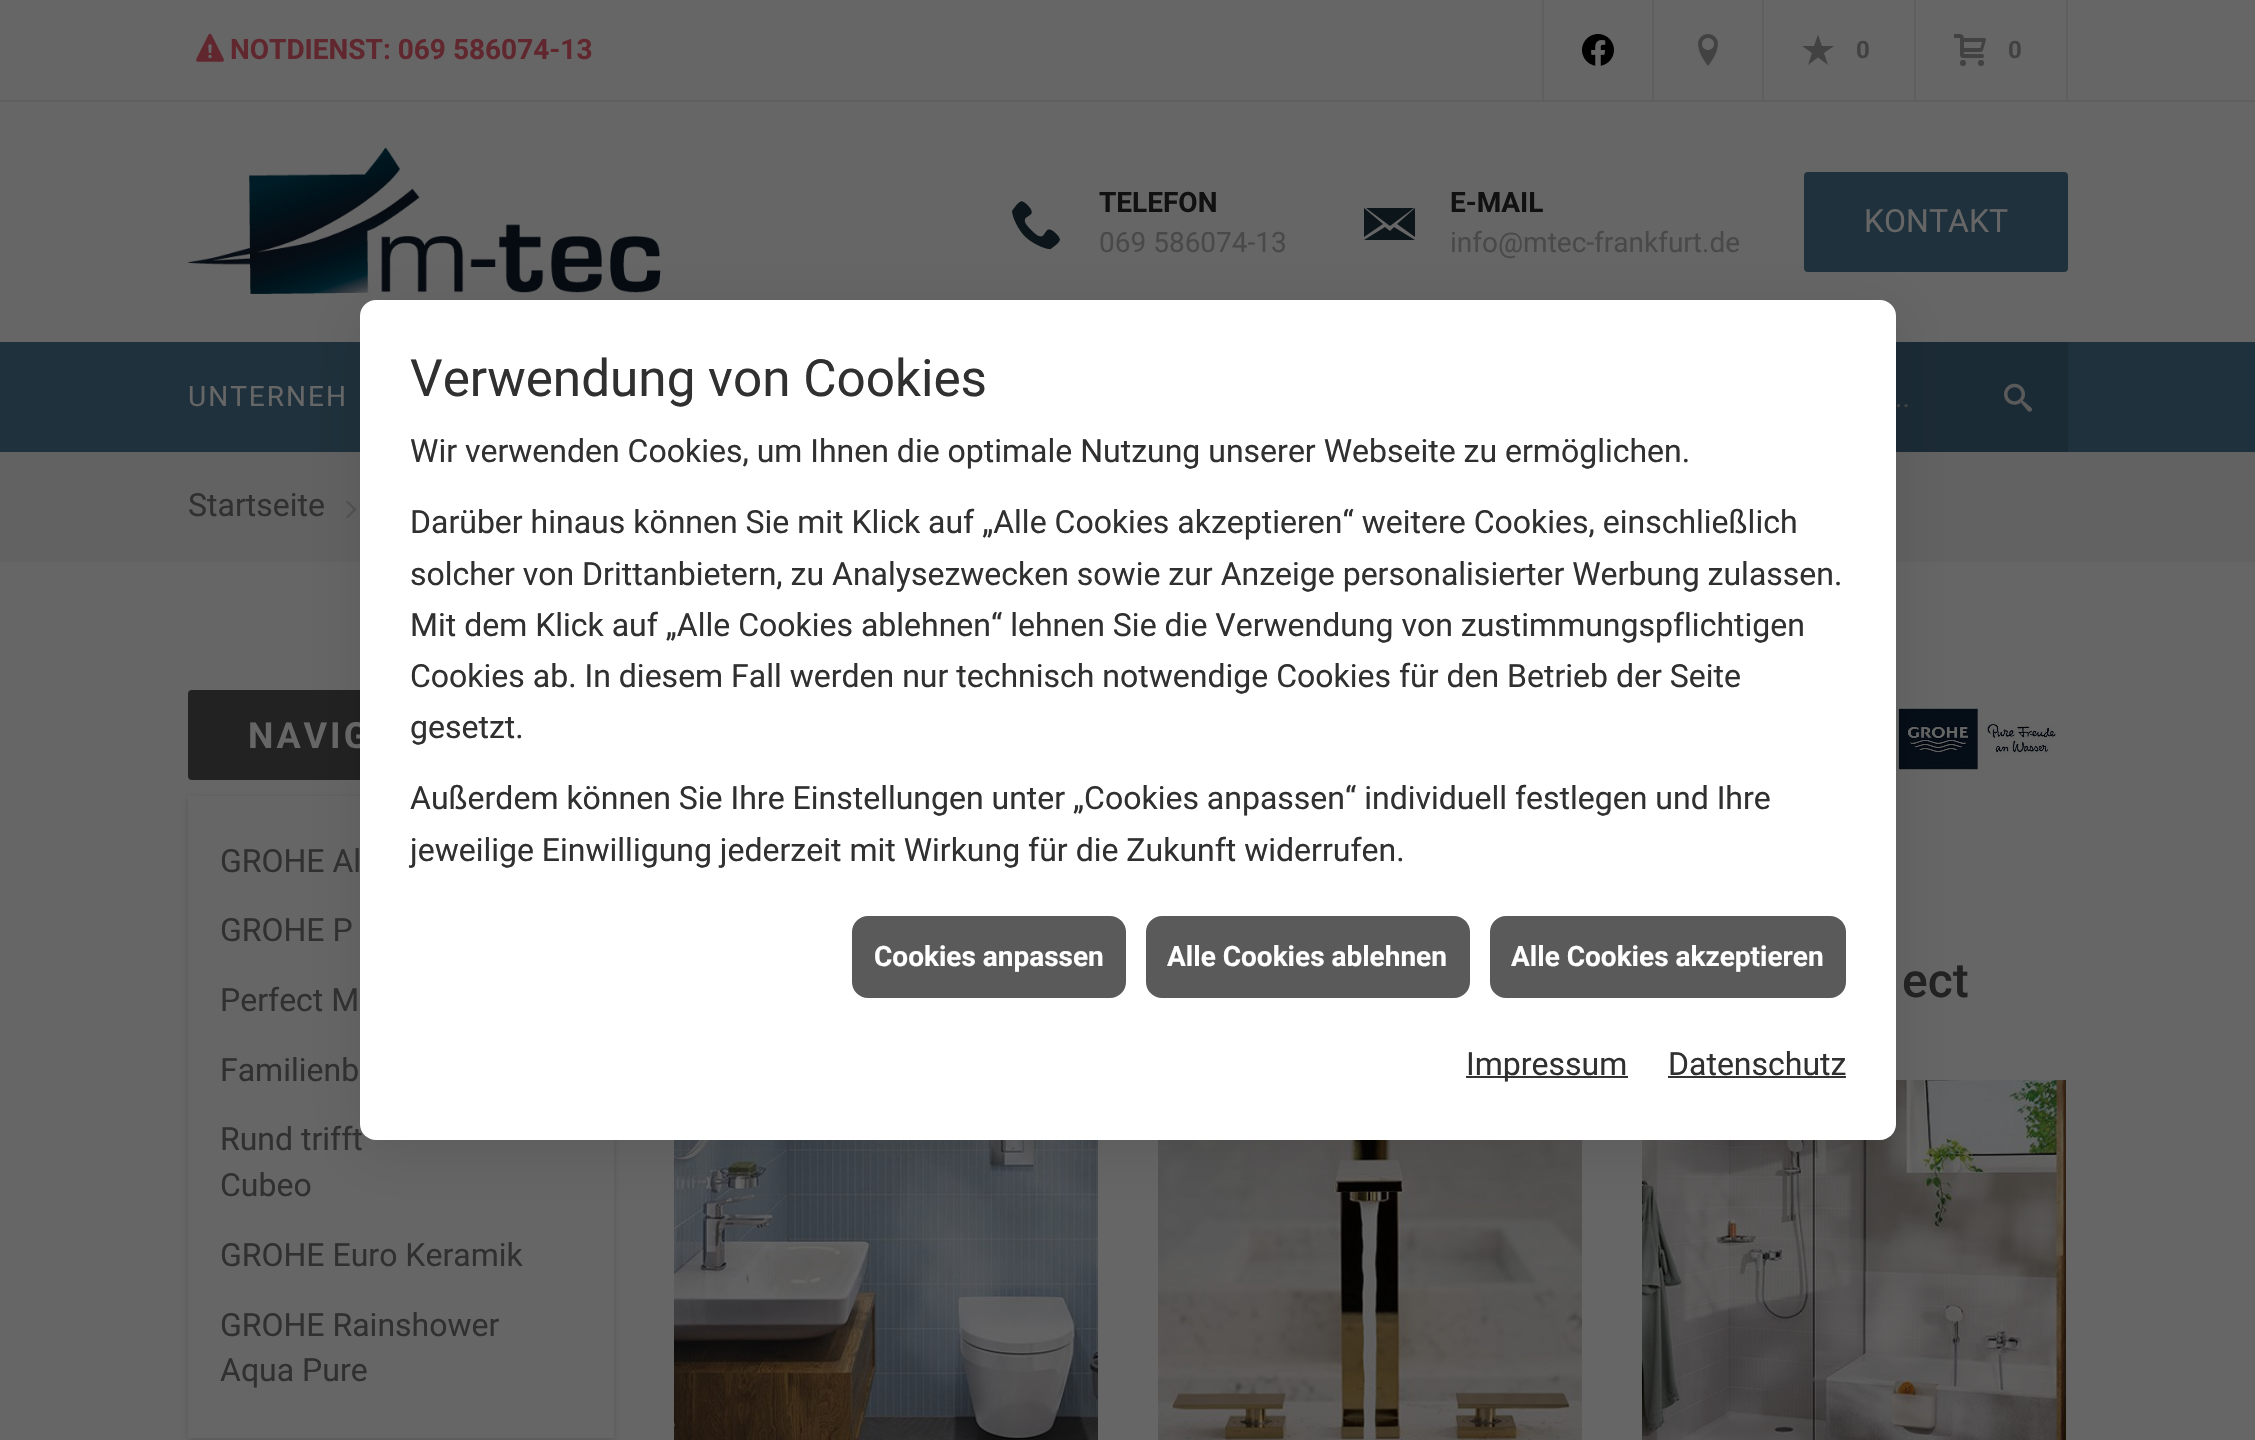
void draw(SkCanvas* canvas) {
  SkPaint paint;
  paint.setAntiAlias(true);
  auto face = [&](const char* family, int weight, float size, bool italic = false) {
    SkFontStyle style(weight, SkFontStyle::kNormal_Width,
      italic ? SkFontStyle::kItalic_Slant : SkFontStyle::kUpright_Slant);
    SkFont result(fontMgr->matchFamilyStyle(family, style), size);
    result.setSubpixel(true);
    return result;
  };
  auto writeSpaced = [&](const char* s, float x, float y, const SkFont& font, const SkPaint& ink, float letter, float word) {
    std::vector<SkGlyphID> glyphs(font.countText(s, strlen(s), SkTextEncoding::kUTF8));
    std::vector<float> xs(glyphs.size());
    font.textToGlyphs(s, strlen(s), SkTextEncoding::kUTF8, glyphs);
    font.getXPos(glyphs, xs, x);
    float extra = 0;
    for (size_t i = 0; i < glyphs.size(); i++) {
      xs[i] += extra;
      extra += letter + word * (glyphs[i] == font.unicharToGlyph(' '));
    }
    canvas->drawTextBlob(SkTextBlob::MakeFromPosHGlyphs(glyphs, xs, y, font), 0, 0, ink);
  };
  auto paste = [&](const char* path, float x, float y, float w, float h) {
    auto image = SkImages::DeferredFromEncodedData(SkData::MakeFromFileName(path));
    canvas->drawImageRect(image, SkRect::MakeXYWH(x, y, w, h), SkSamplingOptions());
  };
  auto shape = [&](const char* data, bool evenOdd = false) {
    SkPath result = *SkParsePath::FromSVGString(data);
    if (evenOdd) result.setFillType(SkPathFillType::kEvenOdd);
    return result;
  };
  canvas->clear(0xff626262);
  paint.setColor(0xff666666);
  canvas->drawRect(SkRect::MakeXYWH(0, 0, 2255, 100), paint);
  paint.setColor(0xff5f5f5f);
  canvas->drawRect(SkRect::MakeXYWH(0, 100, 2255, 2), paint);
  paste("img/1.png", 196, 33, 28, 29);
  canvas->drawRect(SkRect::MakeXYWH(1542, 0, 2, 100), paint);
  paste("img/2.png", 1582, 34, 32, 32);
  canvas->drawRect(SkRect::MakeXYWH(1652, 0, 2, 100), paint);
  paste("img/3.png", 1698, 34, 20, 32);
  canvas->drawRect(SkRect::MakeXYWH(1762, 0, 2, 100), paint);
  paint.setColor(0xff424242);
  canvas->drawPath(shape("M1834 46H1822L1818 34.5L1814 46H1802L1812 53L1808 65L1818 57.5L1828 65L1824 53Z"), paint);
  paint.setColor(0xff5f5f5f);
  canvas->drawRect(SkRect::MakeXYWH(2066, 0, 2, 100), paint);
  canvas->drawRect(SkRect::MakeXYWH(1914, 0, 2, 100), paint);
  paste("img/4.png", 1954, 34, 32, 32);
  paint.setColor(0xff666666);
  canvas->drawRect(SkRect::MakeXYWH(0, 102, 2255, 240), paint);
  paste("img/5.png", 188, 147, 473, 147);
  paste("img/6.png", 1012, 201, 48, 49);
  paint.setColor(0xff0c161a);
  canvas->drawPath(shape("M1397 224L1415 237V208ZM1364 208V237L1383 224ZM1390 231L1385 227L1364 240H1415L1394 227ZM1414 208H1366L1390 226Z"), paint);
  paint.setColor(0xff1f313c);
  canvas->drawRoundRect(SkRect::MakeXYWH(1804, 172, 264, 100), 4, 4, paint);
  canvas->drawRect(SkRect::MakeXYWH(0, 342, 2255, 110), paint);
  paint.setColor(0xff1b2b36);
  canvas->drawRect(SkRect::MakeXYWH(1896, 342, 172, 110), paint);
  paste("img/7.png", 2004, 383, 28, 29);
  paint.setColor(0xff525252);
  canvas->drawPath(shape("M347.5 500.5L356.5 509.5L355 511L346 502Z"), paint);
  canvas->drawPath(shape("M355 508L356.5 509.5L347.5 518.5L346 517Z"), paint);
  paint.setColor(0xff666666);
  canvas->drawRect(SkRect::MakeXYWH(0, 562, 2255, 878), paint);
  paint.setColor(0xff222222);
  canvas->drawRoundRect(SkRect::MakeXYWH(188, 690, 366, 90), 4, 4, paint);
  canvas->save();
  canvas->clipPath(shape("M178 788H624V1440H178ZM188 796H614V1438H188Z", true), true);
  paint.setColor(0x26000000);
  paint.setMaskFilter(SkMaskFilter::MakeBlur(kNormal_SkBlurStyle, 3));
  canvas->drawRect(SkRect::MakeXYWH(188, 798, 426, 642), paint);
  paint.setMaskFilter(nullptr);
  canvas->restore();
  paste("img/8.png", 1896, 706, 160, 64);
  paste("img/9.png", 1642, 1080, 424, 360);
  paste("img/10.png", 674, 1140, 424, 300);
  paste("img/11.png", 1158, 1140, 424, 300);
  paint.setColor(0x1a000000);
  paint.setMaskFilter(SkMaskFilter::MakeBlur(kNormal_SkBlurStyle, 28));
  canvas->drawRoundRect(SkRect::MakeXYWH(360, 312, 1536, 840), 16, 16, paint);
  paint.setMaskFilter(nullptr);
  auto f0 = face("Roboto", 700, 28);
  paint.setColor(0xff61272f);
  canvas->drawString("NOTDIENST: 069 586074-13", 230, 59, f0, paint);
  auto f1 = face("Roboto", 700, 24);
  paint.setColor(0xff424242);
  canvas->drawString("0", 1856, 58, f1, paint);
  canvas->drawString("0", 2008, 58, f1, paint);
  paint.setColor(0xff111111);
  canvas->drawString("TELEFON", 1099, 212, f0, paint);
  auto f2 = face("Roboto", 400, 28);
  paint.setColor(0xff494949);
  canvas->drawString("069 586074-13", 1099, 252, f2, paint);
  paint.setColor(0xff111111);
  canvas->drawString("E-MAIL", 1450, 212, f0, paint);
  paint.setColor(0xff494949);
  canvas->drawString("info@mtec-frankfurt.de", 1450, 252, f2, paint);
  auto f3 = face("Roboto", 400, 32);
  paint.setColor(0xff666666);
  canvas->drawString("KONTAKT", 1864, 232, f3, paint);
  writeSpaced("UNTERNEH", 188, 406, f2, paint, 2, 0);
  paint.setColor(0xff424242);
  canvas->drawString("..", 1895, 407, f2, paint);
  paint.setColor(0xff303030);
  canvas->drawString("Startseite", 188, 516, f3, paint);
  auto f4 = face("Roboto", 700, 36);
  paint.setColor(0xff666666);
  writeSpaced("NAVIG", 248, 748, f4, paint, 3, 0);
  paint.setColor(0xff303030);
  {
    const struct { const char* s; float x, y; } items[] = {
      {"GROHE Al", 220, 872},
      {"GROHE P", 220, 941},
      {"Perfect M", 220, 1011},
      {"Familienb", 220, 1081},
      {"Rund trifft", 220, 1150},
      {"Cubeo", 220, 1196},
      {"GROHE Euro Keramik", 220, 1266},
      {"GROHE Rainshower", 220, 1336},
      {"Aqua Pure", 220, 1381},
    };
    for (auto [s, x, y] : items) {
      canvas->drawString(s, x, y, f3, paint);
    }
  }
  auto f5 = face("Roboto", 500, 48);
  paint.setColor(0xff222222);
  canvas->drawString("ect", 1902, 997, f5, paint);
  paint.setColor(0xffffffff);
  canvas->drawRoundRect(SkRect::MakeXYWH(360, 300, 1536, 840), 16, 16, paint);
  auto f6 = face("Roboto", 400, 51.25f);
  paint.setColor(0xff303030);
  canvas->drawString("Verwendung von Cookies", 410, 396, f6, paint);
  {
    const struct { const char* s; float x, y; } items[] = {
      {"Wir verwenden Cookies, um Ihnen die optimale Nutzung unserer Webseite zu ermöglichen.", 410, 462},
      {"Darüber hinaus können Sie mit Klick auf „Alle Cookies akzeptieren“ weitere Cookies, einschließlich", 410, 533},
      {"solcher von Drittanbietern, zu Analysezwecken sowie zur Anzeige personalisierter Werbung zulassen.", 410, 585},
      {"Mit dem Klick auf „Alle Cookies ablehnen“ lehnen Sie die Verwendung von zustimmungspflichtigen", 410, 636},
      {"Cookies ab. In diesem Fall werden nur technisch notwendige Cookies für den Betrieb der Seite", 410, 687},
      {"gesetzt.", 410, 738},
      {"Außerdem können Sie Ihre Einstellungen unter „Cookies anpassen“ individuell festlegen und Ihre", 410, 809},
      {"jeweilige Einwilligung jederzeit mit Wirkung für die Zukunft widerrufen.", 410, 861},
    };
    for (auto [s, x, y] : items) {
      canvas->drawString(s, x, y, f3, paint);
    }
  }
  paint.setColor(0xff5a5a5a);
  canvas->drawRoundRect(SkRect::MakeXYWH(853, 917, 272, 80), 15, 15, paint);
  paint.setStroke(true);
  paint.setStrokeWidth(2);
  canvas->drawRoundRect(SkRect::MakeXYWH(853, 917, 272, 80), 15, 15, paint);
  paint.setStroke(false);
  paint.setColor(0xffffffff);
  canvas->drawString("Cookies anpassen", 874, 966, f0, paint);
  paint.setColor(0xff5a5a5a);
  canvas->drawRoundRect(SkRect::MakeXYWH(1147, 917, 322, 80), 15, 15, paint);
  paint.setStroke(true);
  canvas->drawRoundRect(SkRect::MakeXYWH(1147, 917, 322, 80), 15, 15, paint);
  paint.setStroke(false);
  paint.setColor(0xffffffff);
  canvas->drawString("Alle Cookies ablehnen", 1167, 966, f0, paint);
  paint.setColor(0xff5a5a5a);
  canvas->drawRoundRect(SkRect::MakeXYWH(1491, 917, 354, 80), 15, 15, paint);
  paint.setStroke(true);
  canvas->drawRoundRect(SkRect::MakeXYWH(1491, 917, 354, 80), 15, 15, paint);
  paint.setStroke(false);
  paint.setColor(0xffffffff);
  canvas->drawString("Alle Cookies akzeptieren", 1511, 966, f0, paint);
  paint.setColor(0xff333333);
  canvas->drawRect(SkRect::MakeXYWH(1466, 1076, 162, 2), paint);
  paint.setColor(0xff303030);
  canvas->drawString("Impressum", 1466, 1075, f3, paint);
  canvas->drawString("Datenschutz", 1668, 1075, f3, paint);
  paint.setColor(0xff333333);
  canvas->drawRect(SkRect::MakeXYWH(1668, 1076, 178, 2), paint);
}
